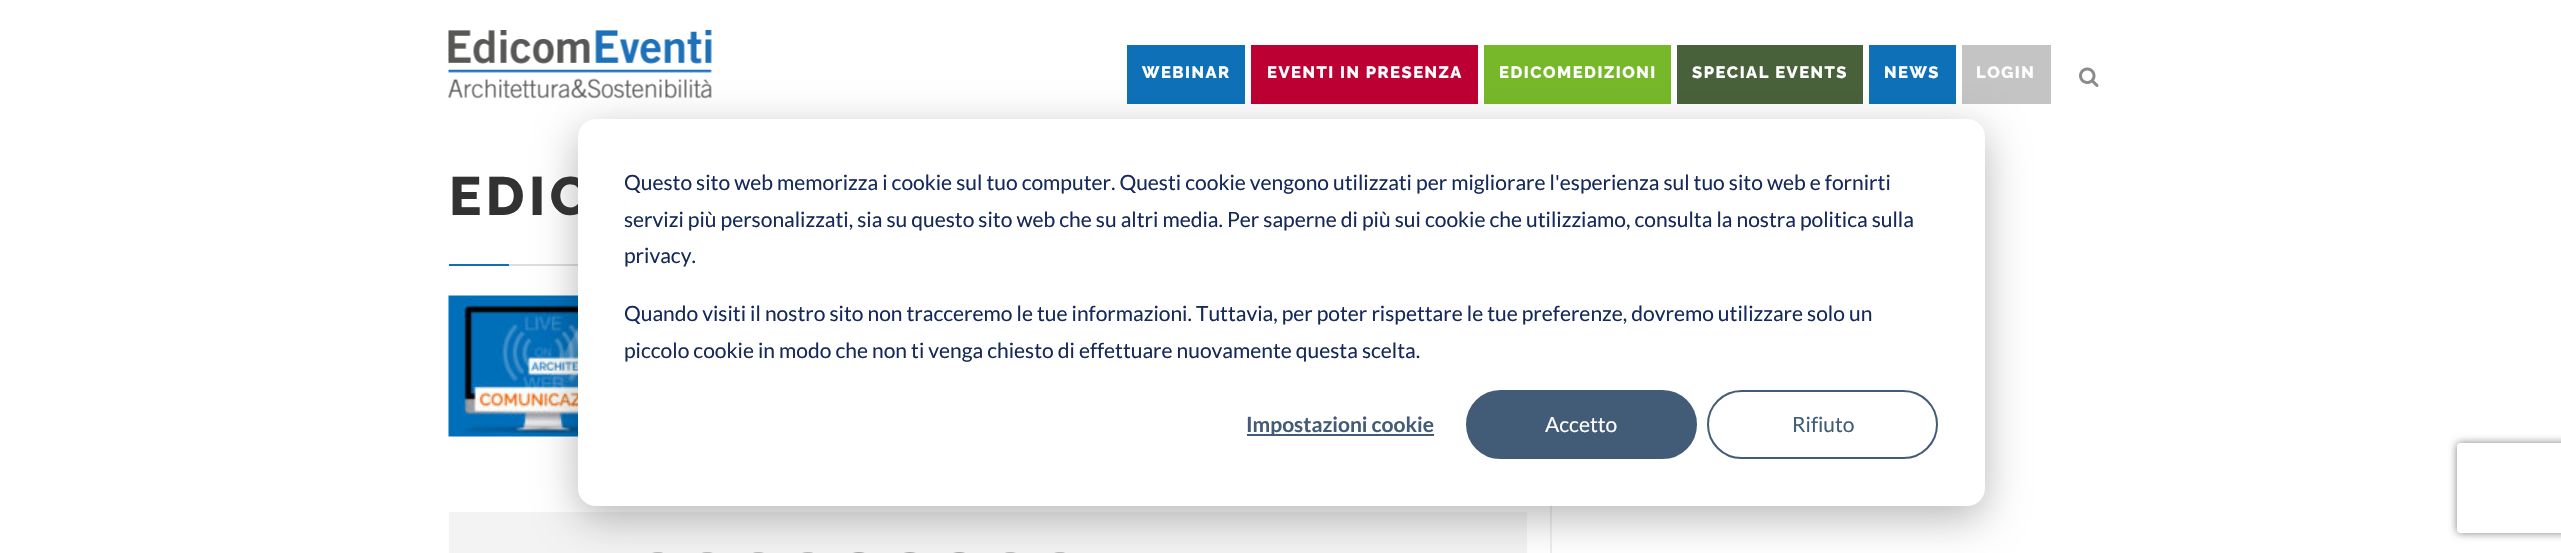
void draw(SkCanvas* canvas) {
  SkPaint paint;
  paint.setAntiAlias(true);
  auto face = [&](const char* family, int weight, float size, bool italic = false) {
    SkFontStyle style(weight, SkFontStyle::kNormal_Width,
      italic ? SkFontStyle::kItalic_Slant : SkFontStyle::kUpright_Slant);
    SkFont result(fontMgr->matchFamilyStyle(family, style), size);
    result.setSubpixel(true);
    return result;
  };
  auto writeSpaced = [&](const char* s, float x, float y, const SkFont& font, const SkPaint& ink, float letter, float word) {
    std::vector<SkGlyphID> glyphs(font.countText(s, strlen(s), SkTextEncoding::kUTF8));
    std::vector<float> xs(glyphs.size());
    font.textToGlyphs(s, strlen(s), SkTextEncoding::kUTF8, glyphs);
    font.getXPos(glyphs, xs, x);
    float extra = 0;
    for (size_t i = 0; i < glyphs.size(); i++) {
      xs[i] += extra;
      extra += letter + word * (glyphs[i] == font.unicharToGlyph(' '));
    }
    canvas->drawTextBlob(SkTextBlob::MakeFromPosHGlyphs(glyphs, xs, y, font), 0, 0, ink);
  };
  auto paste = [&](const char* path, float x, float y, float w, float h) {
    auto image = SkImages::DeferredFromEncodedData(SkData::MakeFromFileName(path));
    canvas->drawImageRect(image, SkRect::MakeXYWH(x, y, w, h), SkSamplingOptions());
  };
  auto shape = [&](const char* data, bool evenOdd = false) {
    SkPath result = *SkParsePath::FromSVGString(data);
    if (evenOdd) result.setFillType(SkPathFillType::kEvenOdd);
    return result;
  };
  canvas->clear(0xffffffff);
  paste("img/1.png", 448, 30, 264, 69);
  {
    const struct { float x, y, w, h; SkColor color; } items[] = {
      {1127, 45, 118, 59, 0xff0e71b8},
      {1251, 45, 227, 59, 0xffbd0033},
      {1484, 45, 187, 59, 0xff76b82a},
      {1677, 45, 186, 59, 0xff49613b},
      {1869, 45, 87, 59, 0xff0e71b8},
      {1962, 45, 89, 59, 0xffc4c4c4},
    };
    for (auto [x, y, w, h, color] : items) {
      paint.setColor(color);
      canvas->drawRect(SkRect::MakeXYWH(x, y, w, h), paint);
    }
  }
  paste("img/2.png", 2079, 67, 20, 20);
  {
    const struct { float x, y, w, h; SkColor color; } items[] = {
      {1550, 506, 2, 47, 0xffeeeeee},
      {509, 264, 69, 2, 0xffdddddd},
      {449, 264, 60, 2, 0xff0e71b8},
    };
    for (auto [x, y, w, h, color] : items) {
      paint.setColor(color);
      canvas->drawRect(SkRect::MakeXYWH(x, y, w, h), paint);
    }
  }
  paste("img/3.png", 448, 295, 130, 142);
  paint.setColor(0xfff3f3f3);
  canvas->drawRect(SkRect::MakeXYWH(449, 512, 1078, 41), paint);
  paste("img/4.png", 652, 552, 11, 1);
  paste("img/5.png", 702, 552, 11, 1);
  paste("img/5.png", 753, 552, 11, 1);
  paste("img/4.png", 802, 552, 11, 1);
  paste("img/6.png", 853, 552, 12, 1);
  paste("img/7.png", 904, 552, 12, 1);
  paste("img/8.png", 953, 552, 12, 1);
  paste("img/9.png", 1005, 552, 11, 1);
  paste("img/4.png", 1054, 552, 11, 1);
  paint.setColor(0x47000000);
  paint.setMaskFilter(SkMaskFilter::MakeBlur(kNormal_SkBlurStyle, 21));
  canvas->drawRoundRect(SkRect::MakeXYWH(578, 131, 1407, 387), 18, 18, paint);
  paint.setMaskFilter(nullptr);
  canvas->save();
  canvas->clipPath(shape("M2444 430H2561V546H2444ZM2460 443H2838C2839.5 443 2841 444.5 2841 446V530C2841 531.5 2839.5 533 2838 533H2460C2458.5 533 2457 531.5 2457 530V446C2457 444.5 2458.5 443 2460 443Z", true), true);
  paint.setColor(0xff808080);
  paint.setMaskFilter(SkMaskFilter::MakeBlur(kNormal_SkBlurStyle, 4));
  canvas->drawRoundRect(SkRect::MakeXYWH(2457, 443, 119, 90), 3, 3, paint);
  paint.setMaskFilter(nullptr);
  canvas->restore();
  auto f0 = face("Raleway", 800, 16.5f);
  paint.setColor(0xffffffff);
  {
    const struct { const char* s; float x, y; } items[] = {
      {"WEBINAR", 1142, 78},
      {"EVENTI IN PRESENZA", 1267, 78},
      {"EDICOMEDIZIONI", 1499, 78},
      {"SPECIAL EVENTS", 1692, 78},
      {"NEWS", 1884, 78},
      {"LOGIN", 1976, 78},
    };
    for (auto [s, x, y] : items) {
      writeSpaced(s, x, y, f0, paint, 1.5f, 0);
    }
  }
  auto f1 = face("Raleway", 800, 54);
  paint.setColor(0xff323232);
  writeSpaced("EDIC", 449, 215, f1, paint, 4.5f, 0);
  paint.setColor(0xffffffff);
  canvas->drawRoundRect(SkRect::MakeXYWH(578, 119, 1407, 387), 18, 18, paint);
  auto f2 = face("Lato", 400, 21);
  paint.setColor(0xff15295a);
  {
    const struct { const char* s; float x, y; } items[] = {
      {"Questo sito web memorizza i cookie sul tuo computer. Questi cookie vengono utilizzati per migliorare l'esperienza sul tuo sito web e fornirti", 624, 190},
      {"servizi più personalizzati, sia su questo sito web che su altri media. Per saperne di più sui cookie che utilizziamo, consulta la nostra politica sulla", 624, 227},
      {"privacy.", 624, 263},
      {"Quando visiti il nostro sito non tracceremo le tue informazioni. Tuttavia, per poter rispettare le tue preferenze, dovremo utilizzare solo un", 624, 321},
      {"piccolo cookie in modo che non ti venga chiesto di effettuare nuovamente questa scelta.", 624, 358},
    };
    for (auto [s, x, y] : items) {
      canvas->drawString(s, x, y, f2, paint);
    }
  }
  paint.setColor(0xff425b76);
  canvas->drawRect(SkRect::MakeXYWH(1247, 434, 187, 2), paint);
  auto f3 = face("Lato", 700, 21);
  canvas->drawString("Impostazioni cookie", 1246, 432, f3, paint);
  canvas->drawRoundRect(SkRect::MakeXYWH(1467, 391, 229, 67), 33.5f, 33.5f, paint);
  paint.setStroke(true);
  paint.setStrokeWidth(2);
  canvas->drawRoundRect(SkRect::MakeXYWH(1467, 391, 229, 67), 33.5f, 33.5f, paint);
  paint.setStroke(false);
  paint.setColor(0xffffffff);
  canvas->drawString("Accetto", 1545, 432, f2, paint);
  paint.setStroke(true);
  paint.setColor(0xff425b76);
  canvas->drawRoundRect(SkRect::MakeXYWH(1708, 391, 229, 67), 33.5f, 33.5f, paint);
  paint.setStroke(false);
  canvas->drawString("Rifiuto", 1792, 432, f2, paint);
}
